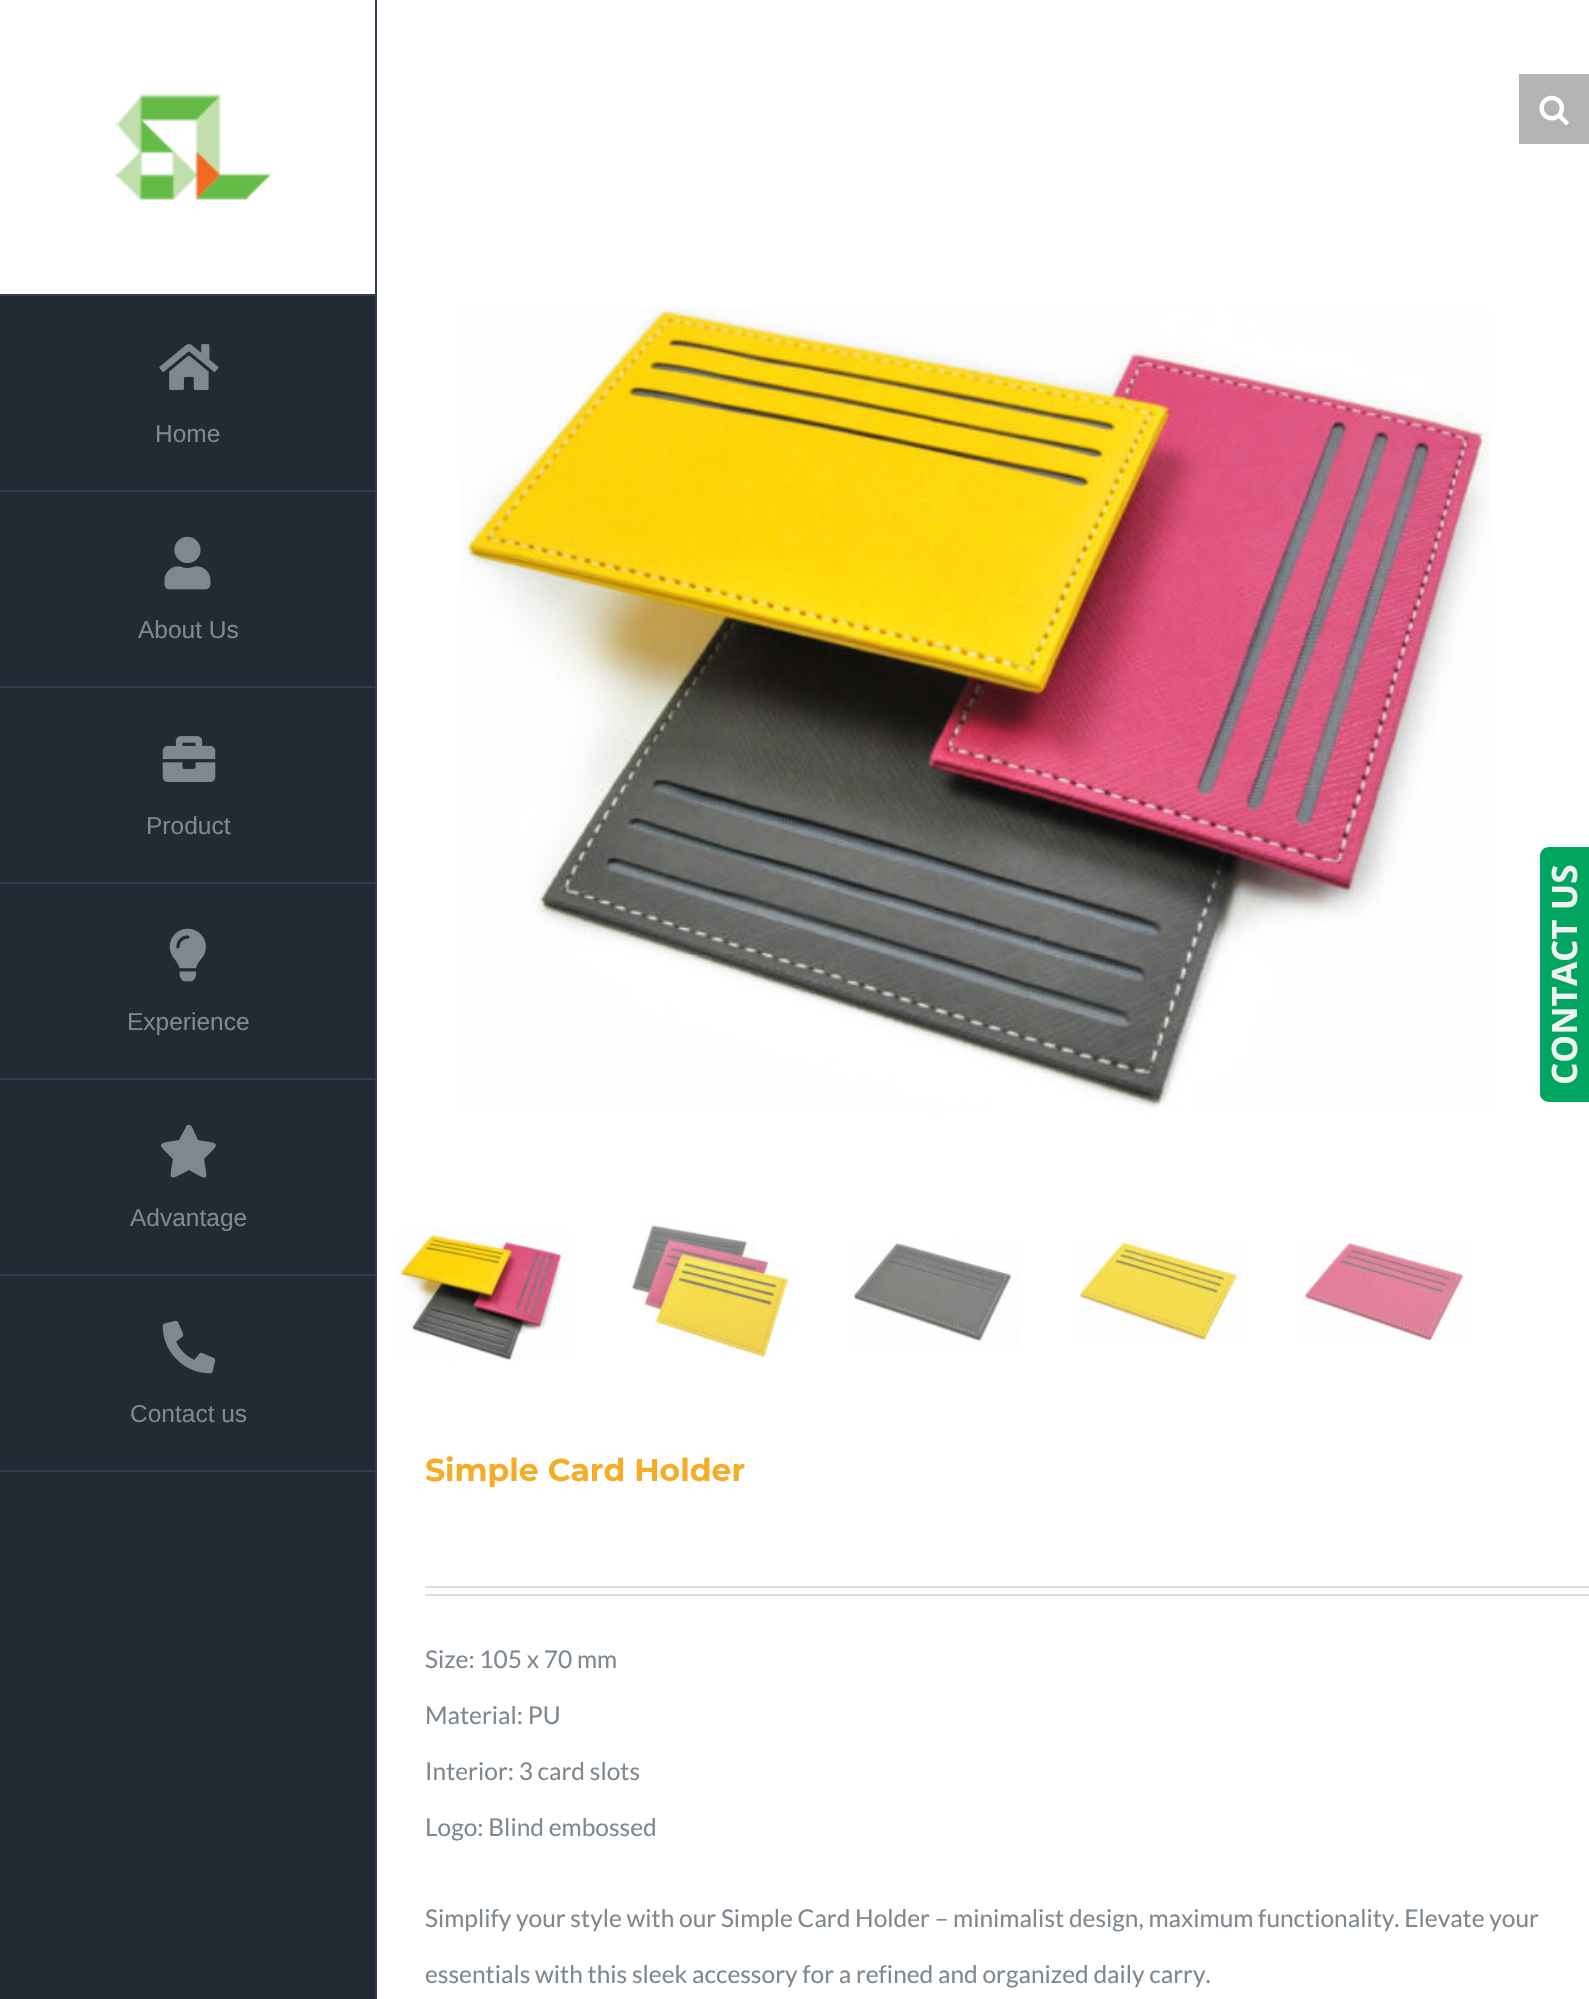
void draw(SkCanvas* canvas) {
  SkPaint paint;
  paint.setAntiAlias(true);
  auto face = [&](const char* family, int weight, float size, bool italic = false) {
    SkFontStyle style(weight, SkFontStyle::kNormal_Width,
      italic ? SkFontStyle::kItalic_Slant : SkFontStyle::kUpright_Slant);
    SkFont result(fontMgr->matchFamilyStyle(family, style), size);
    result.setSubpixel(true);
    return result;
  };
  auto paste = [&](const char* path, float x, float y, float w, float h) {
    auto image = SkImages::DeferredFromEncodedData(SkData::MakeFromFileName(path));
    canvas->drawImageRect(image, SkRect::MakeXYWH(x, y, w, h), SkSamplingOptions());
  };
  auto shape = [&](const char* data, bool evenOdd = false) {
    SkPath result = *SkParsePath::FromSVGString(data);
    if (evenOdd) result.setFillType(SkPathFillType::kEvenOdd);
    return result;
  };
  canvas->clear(0xffffffff);
  paint.setColor(0xff232a34);
  canvas->drawRect(SkRect::MakeXYWH(0, 296, 375, 1703), paint);
  paint.setColor(0xff333c4e);
  canvas->drawRect(SkRect::MakeXYWH(375, 0, 2, 1999), paint);
  paste("img/1.png", 115, 94, 157, 106);
  canvas->drawRect(SkRect::MakeXYWH(0, 294, 376, 2), paint);
  canvas->drawRect(SkRect::MakeXYWH(0, 490, 376, 2), paint);
  paste("img/2.png", 159, 344, 60, 46);
  canvas->drawRect(SkRect::MakeXYWH(0, 686, 376, 2), paint);
  paste("img/3.png", 164, 536, 47, 54);
  canvas->drawRect(SkRect::MakeXYWH(0, 882, 376, 2), paint);
  paste("img/4.png", 162, 736, 54, 46);
  canvas->drawRect(SkRect::MakeXYWH(0, 1078, 376, 2), paint);
  paste("img/5.png", 169, 928, 37, 54);
  canvas->drawRect(SkRect::MakeXYWH(0, 1274, 376, 2), paint);
  paint.setColor(0xff7e8890);
  canvas->drawPath(shape("M186 1127C186 1125 187 1125 189 1125C190 1125 191 1125 192 1127L198 1140C221 1144 221 1142 204 1159C208 1182 209 1181 189 1170C168 1181 169 1182 173 1159C156 1142 156 1144 179 1140Z"), paint);
  paint.setColor(0xff333c4e);
  canvas->drawRect(SkRect::MakeXYWH(0, 1470, 376, 2), paint);
  paste("img/6.png", 162, 1320, 54, 54);
  paint.setColor(0xffb3b3b3);
  canvas->drawRect(SkRect::MakeXYWH(1519, 74, 70, 70), paint);
  paste("img/7.png", 1539, 95, 30, 30);
  paste("img/8.png", 459, 308, 1032, 805);
  paste("img/9.png", 397, 1229, 173, 132);
  paste("img/10.png", 630, 1219, 166, 142);
  paste("img/11.png", 849, 1239, 171, 111);
  paste("img/12.png", 1072, 1239, 173, 101);
  paste("img/13.png", 1298, 1239, 173, 103);
  paint.setColor(0xffdfdddd);
  canvas->drawRect(SkRect::MakeXYWH(425, 1586, 1164, 2), paint);
  canvas->drawRect(SkRect::MakeXYWH(425, 1594, 1164, 2), paint);
  paint.setColor(0xff00a560);
  canvas->drawPath(shape("M1540 1094V856C1540 851 1544 847 1549 847H1589V1102H1549C1544 1102 1540 1098 1540 1094Z"), paint);
  auto f0 = face("Liberation Sans", 400, 24.5f);
  paint.setColor(0xff7e8890);
  {
    const struct { const char* s; float x, y; } items[] = {
      {"Home", 155, 442},
      {"About Us", 138, 638},
      {"Product", 146, 834},
      {"Experience", 127, 1030},
      {"Advantage", 130, 1226},
      {"Contact us", 130, 1422},
    };
    for (auto [s, x, y] : items) {
      canvas->drawString(s, x, y, f0, paint);
    }
  }
  auto f1 = face("Montserrat", 100, 31.5f);
  paint.setColor(0xfff4ad24);
  canvas->drawString("Simple Card Holder", 425, 1481, f1, paint);
  auto f2 = face("Lato", 400, 24.5f);
  paint.setColor(0xff7e8890);
  {
    const struct { const char* s; float x, y; } items[] = {
      {"Size: 105 x 70 mm", 425, 1668},
      {"Material: PU", 425, 1724},
      {"Interior: 3 card slots", 425, 1780},
      {"Logo: Blind embossed", 425, 1836},
      {"Simplify your style with our Simple Card Holder – minimalist design, maximum functionality. Elevate your", 425, 1927},
      {"essentials with this sleek accessory for a refined and organized daily carry.", 425, 1983},
    };
    for (auto [s, x, y] : items) {
      canvas->drawString(s, x, y, f2, paint);
    }
  }
  auto f3 = face("Open Sans", 700, 35);
  paint.setColor(0xfff1f1f1);
  canvas->save();
  canvas->rotate(-90, 1577, 1085);
  canvas->drawString("CONTACT US", 1577, 1085, f3, paint);
  canvas->restore();
}
